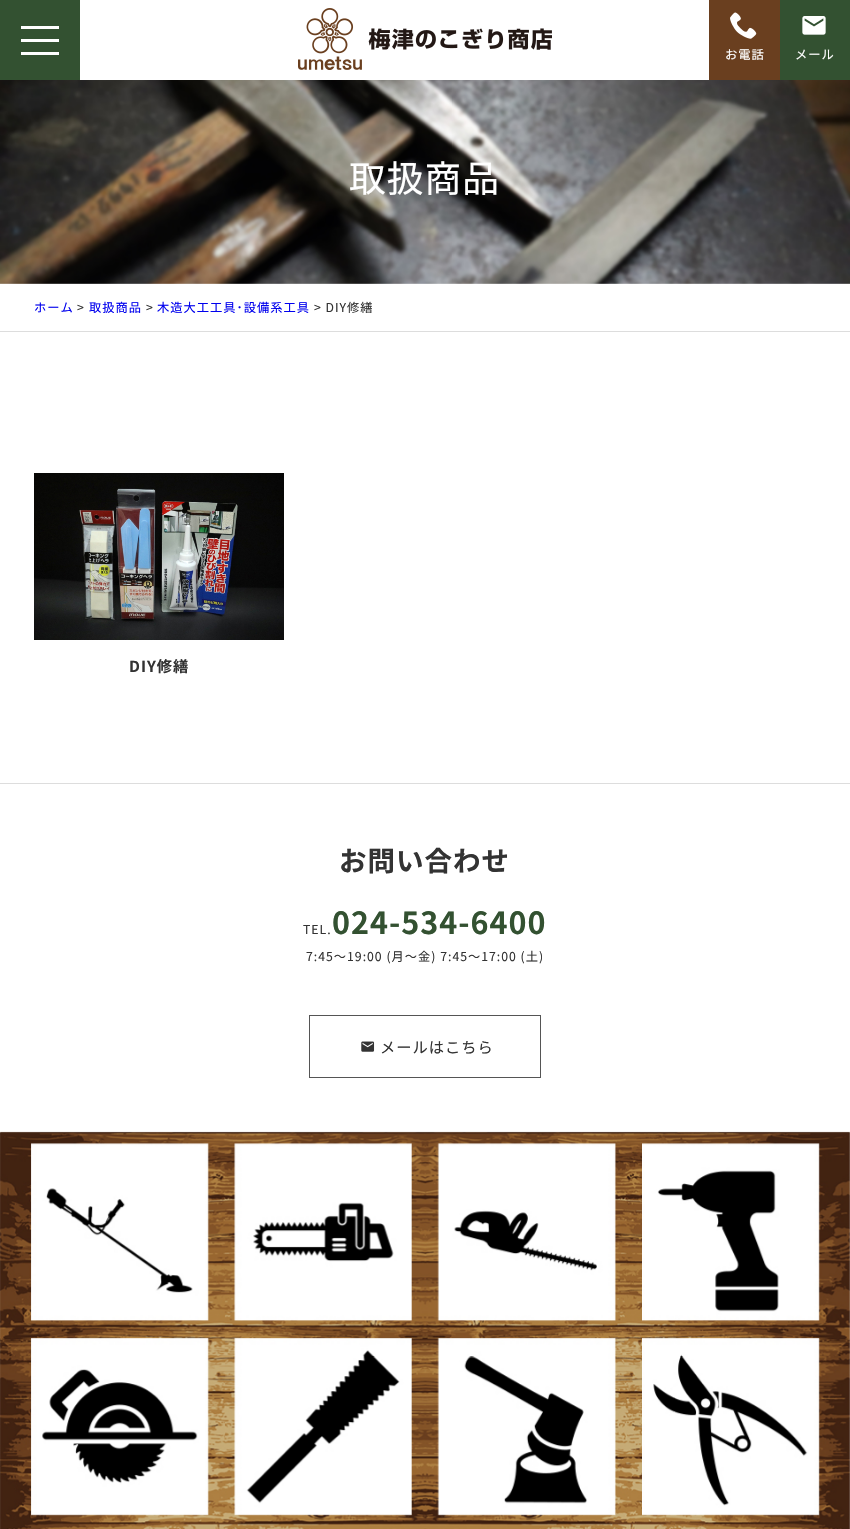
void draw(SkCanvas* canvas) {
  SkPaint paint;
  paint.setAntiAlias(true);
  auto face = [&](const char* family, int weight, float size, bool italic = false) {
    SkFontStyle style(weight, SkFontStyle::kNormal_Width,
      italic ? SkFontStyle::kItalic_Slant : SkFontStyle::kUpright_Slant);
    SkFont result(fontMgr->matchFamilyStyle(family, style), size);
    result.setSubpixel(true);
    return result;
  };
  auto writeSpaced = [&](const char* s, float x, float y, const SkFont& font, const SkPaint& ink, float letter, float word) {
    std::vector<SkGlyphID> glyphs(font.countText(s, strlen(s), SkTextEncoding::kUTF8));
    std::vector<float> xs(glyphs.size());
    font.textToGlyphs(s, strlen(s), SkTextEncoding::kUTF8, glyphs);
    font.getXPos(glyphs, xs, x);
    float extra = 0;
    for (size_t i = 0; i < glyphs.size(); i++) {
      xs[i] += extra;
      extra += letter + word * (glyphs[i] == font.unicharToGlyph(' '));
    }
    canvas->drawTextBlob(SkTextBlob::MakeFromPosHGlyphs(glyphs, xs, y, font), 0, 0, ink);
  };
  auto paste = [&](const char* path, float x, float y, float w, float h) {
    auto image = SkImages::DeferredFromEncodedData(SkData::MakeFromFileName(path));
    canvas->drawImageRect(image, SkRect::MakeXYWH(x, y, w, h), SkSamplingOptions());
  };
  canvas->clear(0xffffffff);
  {
    const struct { float x, y, w, h; SkColor color; } items[] = {
      {0, 0, 80, 80, 0xff335131},
      {21, 26, 38, 3, 0xffffffff},
      {21, 39, 38, 3, 0xffffffff},
      {21, 52, 38, 3, 0xffffffff},
    };
    for (auto [x, y, w, h, color] : items) {
      paint.setColor(color);
      canvas->drawRect(SkRect::MakeXYWH(x, y, w, h), paint);
    }
  }
  paste("img/1.png", 298, 8, 254, 62);
  paint.setColor(0xff6a3f1f);
  canvas->drawRect(SkRect::MakeXYWH(709, 0, 71, 80), paint);
  paste("img/2.png", 730, 12, 27, 27);
  paint.setColor(0xff335131);
  canvas->drawRect(SkRect::MakeXYWH(780, 0, 70, 80), paint);
  paste("img/3.png", 802, 16, 24, 19);
  paste("img/4.png", 0, 80, 850, 204);
  paint.setColor(0xffdddddd);
  canvas->drawRect(SkRect::MakeXYWH(0, 331, 850, 1), paint);
  paste("img/5.png", 34, 473, 250, 167);
  canvas->drawRect(SkRect::MakeXYWH(0, 783, 850, 1), paint);
  paint.setStroke(true);
  paint.setStrokeWidth(1);
  paint.setColor(0xff555555);
  canvas->drawRect(SkRect::MakeXYWH(309.5f, 1015.5f, 231, 62), paint);
  paste("img/6.png", 361, 1041, 14, 11);
  paste("img/7.png", 0, 1131, 850, 398);
  auto f0 = face("Noto Sans JP", 400, 12.25f);
  paint.setStroke(false);
  paint.setColor(0xffffffff);
  writeSpaced("お電話", 725, 59, f0, paint, 1, 0);
  writeSpaced("メール", 795, 59, f0, paint, 1, 0);
  auto f1 = face("Noto Sans JP", 400, 36.75f);
  writeSpaced("取扱商品", 349, 192, f1, paint, 1, 0);
  paint.setColor(0xff0000ee);
  writeSpaced("ホーム", 34, 312, f0, paint, 1, 0);
  paint.setColor(0xff333333);
  writeSpaced(">", 77, 312, f0, paint, 1, 0);
  paint.setColor(0xff0000ee);
  writeSpaced("取扱商品", 89, 312, f0, paint, 1, 0);
  paint.setColor(0xff333333);
  writeSpaced(">", 146, 312, f0, paint, 1, 0);
  paint.setColor(0xff0000ee);
  writeSpaced("木造大工工具･設備系工具", 157, 312, f0, paint, 1, 0);
  paint.setColor(0xff333333);
  writeSpaced("> DIY修繕", 314, 312, f0, paint, 1, 0);
  auto f2 = face("Noto Sans JP", 700, 15.25f);
  writeSpaced("DIY修繕", 129, 672, f2, paint, 1, 0);
  auto f3 = face("Noto Sans JP", 700, 27.5f);
  writeSpaced("お問い合わせ", 339, 871, f3, paint, 1, 0);
  writeSpaced("TEL.", 303, 934, f0, paint, 1, 0);
  auto f4 = face("Noto Sans JP", 700, 30.5f);
  paint.setColor(0xff335131);
  writeSpaced("024-534-6400", 332, 934, f4, paint, 1, 0);
  paint.setColor(0xff333333);
  writeSpaced("7:45～19:00 (月～金) 7:45～17:00 (土)", 306, 961, f0, paint, 1, 0);
  auto f5 = face("Noto Sans JP", 400, 15.25f);
  writeSpaced("メールはこちら", 380, 1053, f5, paint, 1, 0);
}
